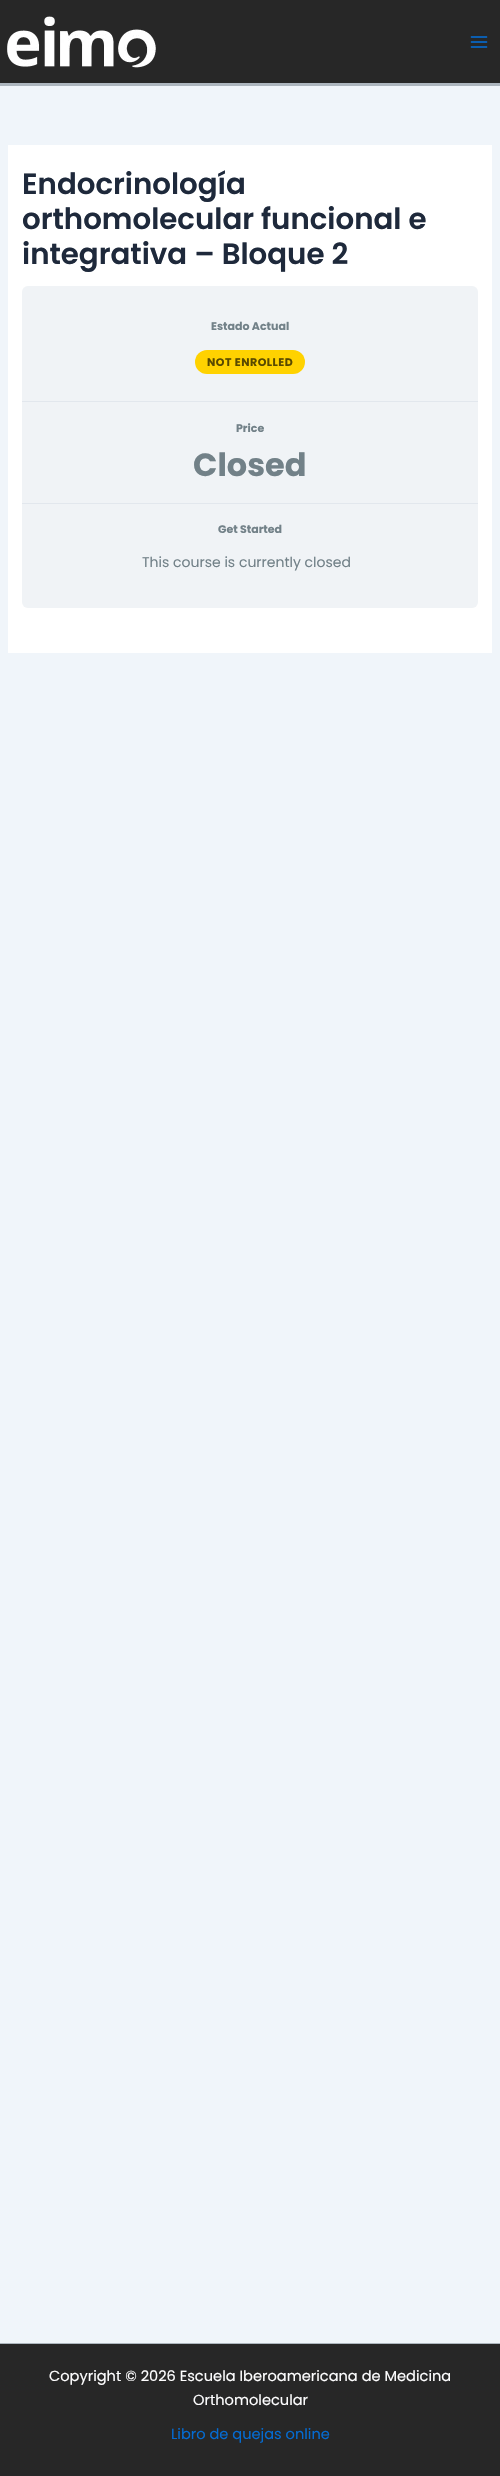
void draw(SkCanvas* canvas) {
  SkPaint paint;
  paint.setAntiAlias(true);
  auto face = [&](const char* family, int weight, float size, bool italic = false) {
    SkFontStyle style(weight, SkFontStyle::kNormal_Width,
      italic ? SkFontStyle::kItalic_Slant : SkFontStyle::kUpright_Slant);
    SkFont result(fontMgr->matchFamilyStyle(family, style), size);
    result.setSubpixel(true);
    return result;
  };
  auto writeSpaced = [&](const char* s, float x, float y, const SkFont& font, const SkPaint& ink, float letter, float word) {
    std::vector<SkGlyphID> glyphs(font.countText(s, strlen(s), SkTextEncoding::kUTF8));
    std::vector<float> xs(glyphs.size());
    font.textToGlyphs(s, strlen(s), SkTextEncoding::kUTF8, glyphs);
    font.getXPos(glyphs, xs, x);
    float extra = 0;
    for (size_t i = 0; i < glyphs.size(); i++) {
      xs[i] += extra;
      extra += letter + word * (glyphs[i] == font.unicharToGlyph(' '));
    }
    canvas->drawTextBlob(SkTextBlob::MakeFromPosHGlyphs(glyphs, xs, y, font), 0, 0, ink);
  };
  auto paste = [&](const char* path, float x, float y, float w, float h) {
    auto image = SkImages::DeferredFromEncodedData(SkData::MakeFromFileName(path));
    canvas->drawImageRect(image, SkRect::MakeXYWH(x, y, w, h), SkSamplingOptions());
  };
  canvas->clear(0xfff0f5fa);
  paint.setColor(0xff272727);
  canvas->drawRect(SkRect::MakeXYWH(0, 0, 500, 83), paint);
  paint.setColor(0xffadb6be);
  canvas->drawRect(SkRect::MakeXYWH(0, 83, 500, 3), paint);
  paste("img/1.png", 7, 16, 149, 52);
  paste("img/2.png", 470, 36, 18, 12);
  paint.setColor(0xffffffff);
  canvas->drawRect(SkRect::MakeXYWH(8, 145, 484, 508), paint);
  paint.setColor(0xfff0f3f6);
  canvas->drawRoundRect(SkRect::MakeXYWH(22, 286, 456, 322), 6, 6, paint);
  paint.setColor(0xffe2e7ed);
  canvas->drawRect(SkRect::MakeXYWH(22, 401, 456, 1), paint);
  paint.setColor(0xffffd200);
  canvas->drawRoundRect(SkRect::MakeXYWH(195, 350, 110, 24), 12, 12, paint);
  {
    const struct { float x, y, w, h; SkColor color; } items[] = {
      {22, 503, 456, 1, 0xffe2e7ed},
      {0, 2344, 500, 132, 0xff272727},
      {0, 2343, 500, 1, 0xffadb6be},
    };
    for (auto [x, y, w, h, color] : items) {
      paint.setColor(color);
      canvas->drawRect(SkRect::MakeXYWH(x, y, w, h), paint);
    }
  }
  auto f0 = face("Poppins", 600, 29.25f);
  paint.setColor(0xff1e293b);
  {
    const struct { const char* s; float x, y; } items[] = {
      {"Endocrinología", 22, 194},
      {"orthomolecular funcional e", 22, 229},
      {"integrativa – Bloque 2", 22, 264},
    };
    for (auto [s, x, y] : items) {
      canvas->drawString(s, x, y, f0, paint);
    }
  }
  auto f1 = face("Poppins", 700, 11);
  paint.setColor(0xff728188);
  canvas->drawString("Estado Actual", 211, 330, f1, paint);
  paint.setColor(0xff594a00);
  writeSpaced("NOT ENROLLED", 207, 366, f1, paint, 0.5f, 0);
  paint.setColor(0xff728188);
  canvas->drawString("Price", 236, 432, f1, paint);
  auto f2 = face("Poppins", 700, 32);
  canvas->drawString("Closed", 193, 476, f2, paint);
  canvas->drawString("Get Started", 218, 533, f1, paint);
  auto f3 = face("Poppins", 400, 14);
  canvas->drawString("This course is currently closed", 142, 567, f3, paint);
  auto f4 = face("Poppins", 400, 14.6f);
  paint.setColor(0xfffefeff);
  canvas->drawString("Copyright © 2026 Escuela Iberoamericana de Medicina", 49, 2381, f4, paint);
  canvas->drawString("Orthomolecular", 193, 2405, f4, paint);
  paint.setColor(0xff046bd2);
  canvas->drawString("Libro de quejas online", 171, 2439, f4, paint);
}
